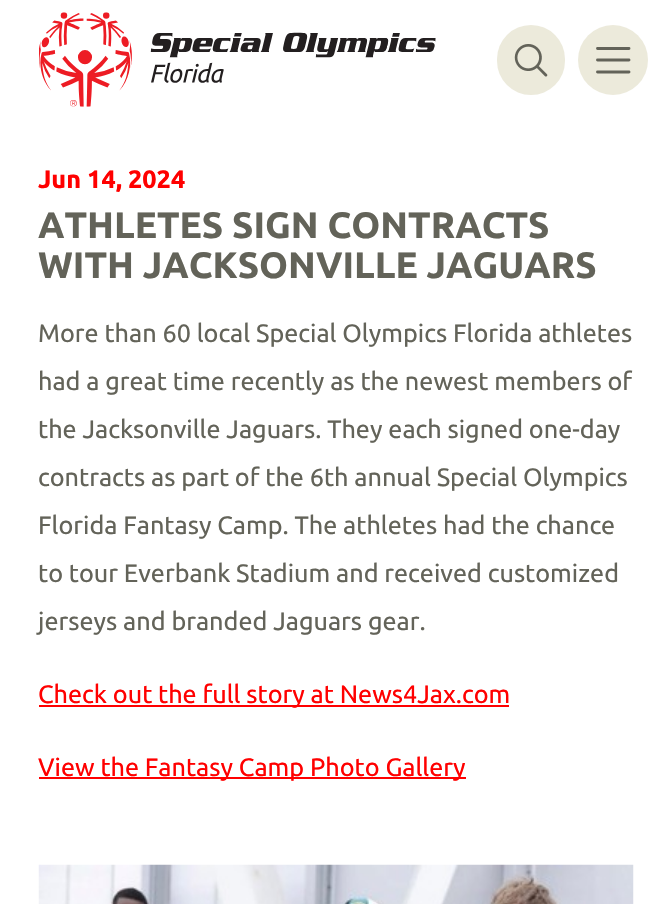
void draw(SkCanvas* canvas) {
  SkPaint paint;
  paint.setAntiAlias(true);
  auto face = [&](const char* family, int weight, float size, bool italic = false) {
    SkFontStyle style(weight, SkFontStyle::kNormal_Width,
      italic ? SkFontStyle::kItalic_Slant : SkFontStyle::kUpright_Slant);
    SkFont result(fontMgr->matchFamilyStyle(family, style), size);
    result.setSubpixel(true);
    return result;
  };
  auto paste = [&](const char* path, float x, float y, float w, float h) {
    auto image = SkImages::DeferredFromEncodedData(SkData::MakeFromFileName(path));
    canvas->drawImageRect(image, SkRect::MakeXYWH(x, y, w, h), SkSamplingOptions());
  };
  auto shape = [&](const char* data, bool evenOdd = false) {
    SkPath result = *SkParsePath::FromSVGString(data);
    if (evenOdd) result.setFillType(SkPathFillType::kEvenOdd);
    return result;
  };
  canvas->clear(0xffffffff);
  paste("img/1.png", 39, 12, 397, 95);
  paint.setColor(0xffeceadb);
  canvas->drawRoundRect(SkRect::MakeXYWH(497, 25, 68, 70), 34, 34, paint);
  paste("img/2.png", 514, 44, 34, 33);
  canvas->drawCircle(613, 60, 35, paint);
  paint.setStroke(true);
  paint.setStrokeWidth(2.9f);
  paint.setStrokeCap(SkPaint::kRound_Cap);
  paint.setColor(0xff636359);
  canvas->drawPath(shape("M597.5 48.5H629M597.5 60H629M597.5 72H629"), paint);
  paint.setStroke(false);
  paint.setColor(0xffff0000);
  canvas->drawRect(SkRect::MakeXYWH(39, 705, 470, 2), paint);
  canvas->drawRect(SkRect::MakeXYWH(39, 777, 427, 2), paint);
  paste("img/3.png", 38, 864, 596, 40);
  auto f0 = face("Ubuntu", 700, 25.2f);
  canvas->drawString("Jun 14, 2024", 38, 188, f0, paint);
  auto f1 = face("Ubuntu", 700, 36.75f);
  paint.setColor(0xff636359);
  canvas->drawString("ATHLETES SIGN CONTRACTS", 38, 238, f1, paint);
  canvas->drawString("WITH JACKSONVILLE JAGUARS", 38, 278, f1, paint);
  auto f2 = face("Ubuntu", 400, 25.2f);
  {
    const struct { const char* s; float x, y; } items[] = {
      {"More than 60 local Special Olympics Florida athletes", 38, 342},
      {"had a great time recently as the newest members of", 38, 390},
      {"the Jacksonville Jaguars. They each signed one-day", 38, 438},
      {"contracts as part of the 6th annual Special Olympics", 38, 486},
      {"Florida Fantasy Camp. The athletes had the chance", 38, 534},
      {"to tour Everbank Stadium and received customized", 38, 582},
      {"jerseys and branded Jaguars gear.", 38, 630},
    };
    for (auto [s, x, y] : items) {
      canvas->drawString(s, x, y, f2, paint);
    }
  }
  paint.setColor(0xffff0000);
  canvas->drawString("Check out the full story at News4Jax.com", 38, 703, f2, paint);
  canvas->drawString("View the Fantasy Camp Photo Gallery", 38, 776, f2, paint);
}
